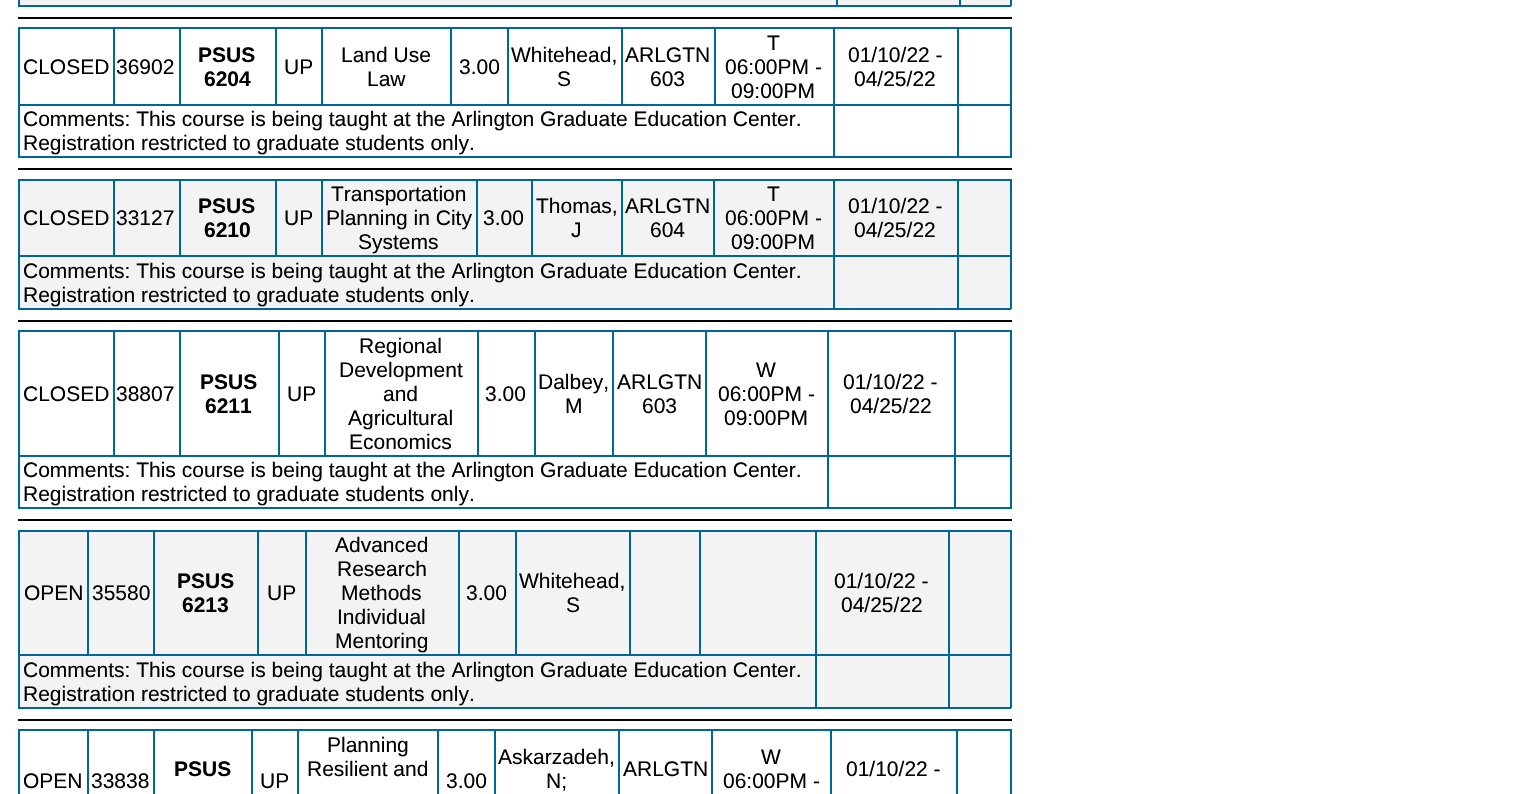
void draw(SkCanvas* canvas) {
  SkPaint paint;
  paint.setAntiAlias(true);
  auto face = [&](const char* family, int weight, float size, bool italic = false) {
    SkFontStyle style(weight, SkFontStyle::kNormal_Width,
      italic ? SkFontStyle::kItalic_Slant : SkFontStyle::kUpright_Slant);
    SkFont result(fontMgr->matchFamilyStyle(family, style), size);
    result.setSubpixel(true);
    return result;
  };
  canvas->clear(0xffffffff);
  {
    const struct { float x, y, w, h; SkColor color; } items[] = {
      {18, 0, 2, 5, 0xff006699},
      {20, 0, 991, 5, 0xfff3f3f3},
      {1010, 0, 2, 6, 0xff006699},
      {959, 5, 52, 2, 0xff006699},
      {959, 0, 2, 6, 0xff006699},
      {836, 5, 124, 2, 0xff006699},
      {836, 0, 2, 6, 0xff006699},
      {18, 5, 819, 2, 0xff006699},
      {18, 17, 994, 2, 0xff000000},
      {18, 27, 992, 129, 0xff006699},
      {20, 29, 990, 75, 0xffffffff},
      {113, 27, 2, 78, 0xff006699},
      {179, 27, 2, 78, 0xff006699},
      {275, 27, 2, 78, 0xff006699},
      {321, 27, 2, 78, 0xff006699},
      {450, 27, 2, 78, 0xff006699},
      {507, 27, 2, 78, 0xff006699},
      {621, 27, 2, 78, 0xff006699},
      {714, 27, 2, 78, 0xff006699},
      {20, 106, 990, 50, 0xffffffff},
      {1010, 104, 1, 2, 0xff006699},
      {1010, 27, 2, 131, 0xff006699},
      {957, 156, 54, 2, 0xff006699},
      {957, 27, 2, 131, 0xff006699},
      {833, 156, 126, 2, 0xff006699},
      {833, 27, 2, 131, 0xff006699},
      {18, 156, 816, 2, 0xff006699},
      {18, 168, 994, 2, 0xff000000},
      {18, 181, 2, 127, 0xff006699},
      {20, 181, 990, 74, 0xfff3f3f3},
      {957, 179, 54, 2, 0xff006699},
      {957, 255, 54, 2, 0xff006699},
      {20, 257, 990, 51, 0xfff3f3f3},
      {1010, 255, 2, 54, 0xff006699},
      {957, 308, 54, 2, 0xff006699},
      {957, 255, 2, 54, 0xff006699},
      {833, 255, 126, 2, 0xff006699},
      {957, 179, 2, 78, 0xff006699},
      {833, 179, 126, 2, 0xff006699},
      {833, 308, 126, 2, 0xff006699},
      {833, 255, 2, 54, 0xff006699},
      {18, 255, 816, 2, 0xff006699},
      {833, 179, 2, 78, 0xff006699},
      {713, 179, 121, 2, 0xff006699},
      {713, 179, 2, 78, 0xff006699},
      {621, 179, 93, 2, 0xff006699},
      {621, 179, 2, 78, 0xff006699},
      {531, 179, 92, 2, 0xff006699},
      {531, 179, 2, 78, 0xff006699},
      {476, 179, 57, 2, 0xff006699},
      {476, 179, 2, 78, 0xff006699},
      {321, 179, 156, 2, 0xff006699},
      {321, 179, 2, 78, 0xff006699},
      {275, 179, 48, 2, 0xff006699},
      {275, 179, 2, 78, 0xff006699},
      {179, 179, 97, 2, 0xff006699},
      {179, 179, 2, 78, 0xff006699},
      {113, 179, 67, 2, 0xff006699},
      {113, 179, 2, 78, 0xff006699},
      {18, 179, 96, 2, 0xff006699},
      {1010, 179, 2, 78, 0xff006699},
      {18, 308, 816, 2, 0xff006699},
      {18, 320, 994, 2, 0xff000000},
      {18, 330, 992, 177, 0xff006699},
      {20, 332, 990, 123, 0xffffffff},
      {113, 330, 2, 126, 0xff006699},
      {179, 330, 2, 126, 0xff006699},
      {278, 330, 2, 126, 0xff006699},
      {324, 330, 2, 126, 0xff006699},
      {477, 330, 2, 126, 0xff006699},
      {534, 330, 2, 126, 0xff006699},
      {612, 330, 2, 126, 0xff006699},
      {705, 330, 2, 126, 0xff006699},
      {20, 457, 990, 50, 0xffffffff},
      {1010, 455, 1, 2, 0xff006699},
      {1010, 330, 2, 179, 0xff006699},
      {954, 507, 57, 2, 0xff006699},
      {954, 330, 2, 179, 0xff006699},
      {827, 507, 129, 2, 0xff006699},
      {827, 330, 2, 179, 0xff006699},
      {18, 507, 810, 2, 0xff006699},
      {18, 519, 994, 2, 0xff000000},
      {18, 532, 2, 175, 0xff006699},
      {20, 532, 990, 122, 0xfff3f3f3},
      {948, 530, 63, 2, 0xff006699},
      {948, 654, 63, 2, 0xff006699},
      {20, 656, 990, 51, 0xfff3f3f3},
      {1010, 654, 2, 54, 0xff006699},
      {948, 707, 63, 2, 0xff006699},
      {948, 654, 2, 54, 0xff006699},
      {815, 654, 135, 2, 0xff006699},
      {948, 530, 2, 126, 0xff006699},
      {815, 530, 135, 2, 0xff006699},
      {815, 707, 135, 2, 0xff006699},
      {815, 654, 2, 54, 0xff006699},
      {18, 654, 798, 2, 0xff006699},
      {815, 530, 2, 126, 0xff006699},
      {699, 530, 117, 2, 0xff006699},
      {699, 530, 2, 126, 0xff006699},
      {629, 530, 72, 2, 0xff006699},
      {629, 530, 2, 126, 0xff006699},
      {515, 530, 115, 2, 0xff006699},
      {515, 530, 2, 126, 0xff006699},
      {458, 530, 58, 2, 0xff006699},
      {458, 530, 2, 126, 0xff006699},
      {305, 530, 154, 2, 0xff006699},
      {305, 530, 2, 126, 0xff006699},
      {257, 530, 49, 2, 0xff006699},
      {257, 530, 2, 126, 0xff006699},
      {153, 530, 105, 2, 0xff006699},
      {153, 530, 2, 126, 0xff006699},
      {87, 530, 68, 2, 0xff006699},
      {87, 530, 2, 126, 0xff006699},
      {18, 530, 71, 2, 0xff006699},
      {1010, 530, 2, 126, 0xff006699},
      {18, 707, 798, 2, 0xff006699},
      {18, 719, 994, 2, 0xff000000},
      {18, 729, 994, 65, 0xff006699},
      {20, 731, 990, 63, 0xffffffff},
      {153, 729, 2, 65, 0xff006699},
      {297, 729, 2, 65, 0xff006699},
      {494, 729, 2, 65, 0xff006699},
      {618, 729, 2, 65, 0xff006699},
      {711, 729, 2, 65, 0xff006699},
      {830, 729, 2, 65, 0xff006699},
      {956, 729, 2, 65, 0xff006699},
      {87, 729, 2, 65, 0xff006699},
      {251, 729, 2, 65, 0xff006699},
      {437, 729, 2, 65, 0xff006699},
    };
    for (auto [x, y, w, h, color] : items) {
      paint.setColor(color);
      canvas->drawRect(SkRect::MakeXYWH(x, y, w, h), paint);
    }
  }
  auto f0 = face("Liberation Sans", 400, 21);
  paint.setColor(0xff000000);
  canvas->drawString("CLOSED", 23, 74, f0, paint);
  canvas->drawString("36902", 116, 74, f0, paint);
  auto f1 = face("Liberation Sans", 700, 21);
  canvas->drawString("PSUS", 198, 62, f1, paint);
  canvas->drawString("6204", 204, 86, f1, paint);
  {
    const struct { const char* s; float x, y; } items[] = {
      {"UP", 284, 74},
      {"Land Use", 341, 62},
      {"Law", 367, 86},
      {"3.00", 459, 74},
      {"Whitehead,", 511, 62},
      {"S", 557, 86},
      {"ARLGTN", 625, 62},
      {"603", 650, 86},
      {"T", 767, 50},
      {"06:00PM -", 725, 74},
      {"09:00PM", 731, 98},
      {"01/10/22 -", 848, 62},
      {"04/25/22", 854, 86},
      {"Comments: This course is being taught at the Arlington Graduate Education Center.", 23, 126},
      {"Registration restricted to graduate students only.", 23, 150},
      {"CLOSED", 23, 225},
      {"33127", 116, 225},
    };
    for (auto [s, x, y] : items) {
      canvas->drawString(s, x, y, f0, paint);
    }
  }
  canvas->drawString("PSUS", 198, 213, f1, paint);
  canvas->drawString("6210", 204, 237, f1, paint);
  {
    const struct { const char* s; float x, y; } items[] = {
      {"UP", 284, 225},
      {"Transportation", 331, 201},
      {"Planning in City", 326, 225},
      {"Systems", 358, 249},
      {"3.00", 483, 225},
      {"Thomas,", 536, 213},
      {"J", 571, 237},
      {"ARLGTN", 625, 213},
      {"604", 650, 237},
      {"T", 767, 201},
      {"06:00PM -", 725, 225},
      {"09:00PM", 731, 249},
      {"01/10/22 -", 848, 213},
      {"04/25/22", 854, 237},
      {"Comments: This course is being taught at the Arlington Graduate Education Center.", 23, 278},
      {"Registration restricted to graduate students only.", 23, 302},
      {"CLOSED", 23, 401},
      {"38807", 116, 401},
    };
    for (auto [s, x, y] : items) {
      canvas->drawString(s, x, y, f0, paint);
    }
  }
  canvas->drawString("PSUS", 200, 389, f1, paint);
  canvas->drawString("6211", 205, 413, f1, paint);
  {
    const struct { const char* s; float x, y; } items[] = {
      {"UP", 287, 401},
      {"Regional", 359, 353},
      {"Development", 339, 377},
      {"and", 383, 401},
      {"Agricultural", 348, 425},
      {"Economics", 349, 449},
      {"3.00", 485, 401},
      {"Dalbey,", 538, 389},
      {"M", 565, 413},
      {"ARLGTN", 617, 389},
      {"603", 642, 413},
      {"W", 756, 377},
      {"06:00PM -", 718, 401},
      {"09:00PM", 724, 425},
      {"01/10/22 -", 843, 389},
      {"04/25/22", 850, 413},
      {"Comments: This course is being taught at the Arlington Graduate Education Center.", 23, 477},
      {"Registration restricted to graduate students only.", 23, 501},
      {"OPEN", 24, 600},
      {"35580", 92, 600},
    };
    for (auto [s, x, y] : items) {
      canvas->drawString(s, x, y, f0, paint);
    }
  }
  canvas->drawString("PSUS", 177, 588, f1, paint);
  canvas->drawString("6213", 182, 612, f1, paint);
  {
    const struct { const char* s; float x, y; } items[] = {
      {"UP", 267, 600},
      {"Advanced", 335, 552},
      {"Research", 337, 576},
      {"Methods", 341, 600},
      {"Individual", 337, 624},
      {"Mentoring", 335, 648},
      {"3.00", 466, 600},
      {"Whitehead,", 519, 588},
      {"S", 566, 612},
      {"01/10/22 -", 834, 588},
      {"04/25/22", 841, 612},
      {"Comments: This course is being taught at the Arlington Graduate Education Center.", 23, 677},
      {"Registration restricted to graduate students only.", 23, 701},
    };
    for (auto [s, x, y] : items) {
      canvas->drawString(s, x, y, f0, paint);
    }
  }
  canvas->drawString("PSUS", 174, 776, f1, paint);
  {
    const struct { const char* s; float x, y; } items[] = {
      {"Planning", 327, 752},
      {"Resilient and", 307, 776},
      {"Askarzadeh,", 498, 764},
      {"N;", 546, 788},
      {"ARLGTN", 623, 776},
      {"W", 761, 764},
      {"06:00PM -", 723, 788},
      {"01/10/22 -", 846, 776},
      {"OPEN", 23, 788},
      {"33838", 91, 788},
      {"UP", 260, 788},
      {"3.00", 446, 788},
    };
    for (auto [s, x, y] : items) {
      canvas->drawString(s, x, y, f0, paint);
    }
  }
}
